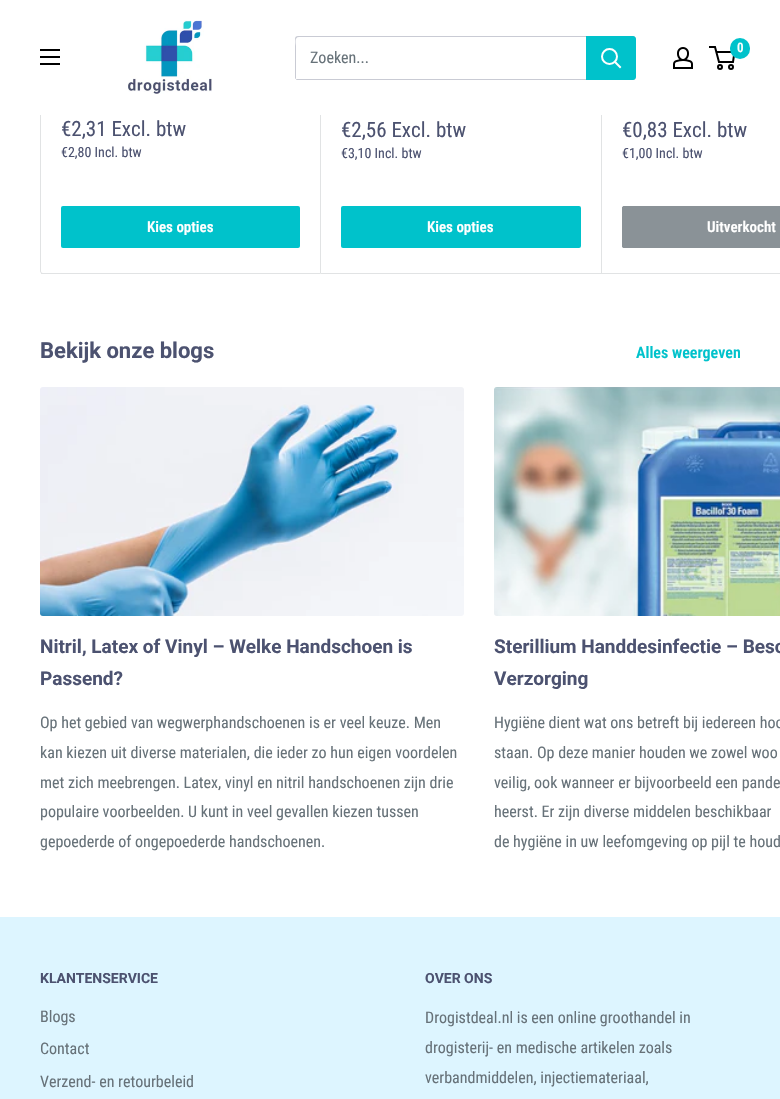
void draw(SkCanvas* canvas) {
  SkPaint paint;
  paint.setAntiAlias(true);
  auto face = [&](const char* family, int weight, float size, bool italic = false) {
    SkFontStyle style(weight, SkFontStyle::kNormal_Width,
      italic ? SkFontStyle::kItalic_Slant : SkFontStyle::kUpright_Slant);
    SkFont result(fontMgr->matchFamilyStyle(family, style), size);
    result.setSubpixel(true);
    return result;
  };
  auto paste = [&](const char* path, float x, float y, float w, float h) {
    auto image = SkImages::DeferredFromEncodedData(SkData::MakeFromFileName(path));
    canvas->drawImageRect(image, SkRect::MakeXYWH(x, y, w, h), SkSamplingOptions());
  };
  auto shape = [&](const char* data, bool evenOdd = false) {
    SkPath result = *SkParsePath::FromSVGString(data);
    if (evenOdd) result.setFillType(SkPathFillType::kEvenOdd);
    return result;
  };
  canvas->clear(0xffffffff);
  paint.setStroke(true);
  paint.setStrokeWidth(1);
  paint.setColor(0xffe1e3e4);
  canvas->drawPath(shape("M43-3.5H320.5V273.5H43C41.5 273.5 40.5 272.5 40.5 271V-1C40.5-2.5 41.5-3.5 43-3.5Z"), paint);
  paint.setStroke(false);
  paint.setColor(0xffffffff);
  canvas->drawRect(SkRect::MakeXYWH(40, 0, 281, 115), paint);
  paste("img/1.png", 128, 20, 84, 74);
  paste("img/2.png", 673, 47, 20, 22);
  paint.setStroke(true);
  paint.setStrokeWidth(2);
  paint.setColor(0xff000000);
  canvas->drawCircle(720, 67, 2, paint);
  canvas->drawCircle(731, 67, 2, paint);
  canvas->drawPath(shape("M716.5 52H734.5L733 62H719L715 47H709"), paint);
  paint.setStroke(false);
  paint.setColor(0xff00c2cb);
  canvas->drawRoundRect(SkRect::MakeXYWH(730, 38, 20, 21), 10, 10, paint);
  paste("img/3.png", 40, 49, 20, 16);
  paint.setColor(0xffc9cbd4);
  canvas->drawPath(shape("M296 79C296 80 297 80 298 80H633C635 80 636 79 636 77V39C636 38 636 37 635 37V70C635 72 637 79 632 79Z"), paint);
  canvas->drawPath(shape("M299 37H635C635 36 634 36 633 36H298C296 36 295 37 295 39V77C295 78 295 79 296 79V46C296 44 294 37 299 37Z"), paint);
  paint.setColor(0xff00c2cb);
  canvas->drawPath(shape("M586 36H633C634.5 36 636 37.5 636 39V77C636 78.5 634.5 80 633 80H586Z"), paint);
  paint.setStroke(true);
  paint.setStrokeCap(SkPaint::kSquare_Cap);
  paint.setColor(0xffffffff);
  canvas->drawPath(shape("M620 67L615 62"), paint);
  paint.setStrokeCap(SkPaint::kButt_Cap);
  canvas->drawCircle(609.5f, 56.5f, 7.5f, paint);
  paint.setStroke(false);
  paint.setColor(0xff00c2cb);
  canvas->drawRoundRect(SkRect::MakeXYWH(61, 206, 239, 42), 2, 2, paint);
  {
    const struct { float x, y, w, h; SkColor color; } items[] = {
      {41, 273, 2, 1, 0xffe1e3e4},
      {601, 115, 1, 159, 0xffe1e3e4},
      {321, 273, 459, 1, 0xffe1e3e4},
    };
    for (auto [x, y, w, h, color] : items) {
      paint.setColor(color);
      canvas->drawRect(SkRect::MakeXYWH(x, y, w, h), paint);
    }
  }
  paint.setColor(0xff00c2cb);
  canvas->drawRoundRect(SkRect::MakeXYWH(341, 206, 240, 42), 2, 2, paint);
  paint.setColor(0xff8a9297);
  canvas->drawPath(shape("M624 206H780V248H624C623 248 622 247 622 246V208C622 207 623 206 624 206Z"), paint);
  paint.setStroke(true);
  paint.setStrokeWidth(1);
  canvas->drawRoundRect(SkRect::MakeXYWH(622.5f, 206.5f, 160, 41), 1.5f, 1.5f, paint);
  paste("img/4.png", 40, 387, 424, 229);
  paste("img/5.png", 494, 387, 286, 229);
  paint.setStroke(false);
  paint.setColor(0xffddf5ff);
  canvas->drawRect(SkRect::MakeXYWH(0, 917, 780, 182), paint);
  auto f0 = face("Roboto Condensed", 600, 13);
  paint.setColor(0xffffffff);
  canvas->drawString("0", 737, 52, f0, paint);
  auto f1 = face("Roboto Condensed", 400, 16);
  paint.setColor(0xff677279);
  canvas->drawString("Zoeken...", 310, 63, f1, paint);
  auto f2 = face("Roboto Condensed", 400, 21);
  paint.setColor(0xff4c5270);
  canvas->drawString("€2,31 Excl. btw", 61, 136, f2, paint);
  auto f3 = face("Roboto Condensed", 400, 14);
  canvas->drawString("€2,80 Incl. btw", 61, 157, f3, paint);
  auto f4 = face("Roboto Condensed", 600, 15);
  paint.setColor(0xffffffff);
  canvas->drawString("Kies opties", 147, 232, f4, paint);
  paint.setColor(0xff4c5270);
  canvas->drawString("€2,56 Excl. btw", 341, 137, f2, paint);
  canvas->drawString("€3,10 Incl. btw", 341, 158, f3, paint);
  paint.setColor(0xffffffff);
  canvas->drawString("Kies opties", 427, 232, f4, paint);
  paint.setColor(0xff4c5270);
  canvas->drawString("€0,83 Excl. btw", 622, 137, f2, paint);
  canvas->drawString("€1,00 Incl. btw", 622, 158, f3, paint);
  paint.setColor(0xffffffff);
  canvas->drawString("Uitverkocht", 707, 232, f4, paint);
  auto f5 = face("Roboto", 700, 22);
  paint.setColor(0xff4c5270);
  canvas->drawString("Bekijk onze blogs", 40, 358, f5, paint);
  auto f6 = face("Roboto Condensed", 600, 16);
  paint.setColor(0xff00c2cb);
  canvas->drawString("Alles weergeven", 636, 358, f6, paint);
  auto f7 = face("Roboto", 700, 19);
  paint.setColor(0xff4c5270);
  canvas->drawString("Nitril, Latex of Vinyl – Welke Handschoen is", 40, 653, f7, paint);
  canvas->drawString("Passend?", 40, 685, f7, paint);
  paint.setColor(0xff677279);
  {
    const struct { const char* s; float x, y; } items[] = {
      {"Op het gebied van wegwerphandschoenen is er veel keuze. Men", 40, 728},
      {"kan kiezen uit diverse materialen, die ieder zo hun eigen voordelen", 40, 758},
      {"met zich meebrengen. Latex, vinyl en nitril handschoenen zijn drie", 40, 788},
      {"populaire voorbeelden. U kunt in veel gevallen kiezen tussen", 40, 817},
      {"gepoederde of ongepoederde handschoenen.", 40, 847},
    };
    for (auto [s, x, y] : items) {
      canvas->drawString(s, x, y, f1, paint);
    }
  }
  paint.setColor(0xff4c5270);
  canvas->drawString("Sterillium Handdesinfectie – Besc", 494, 653, f7, paint);
  canvas->drawString("Verzorging", 494, 685, f7, paint);
  paint.setColor(0xff677279);
  {
    const struct { const char* s; float x, y; } items[] = {
      {"Hygiëne dient wat ons betreft bij iedereen hoo", 494, 728},
      {"staan. Op deze manier houden we zowel woo", 494, 758},
      {"veilig, ook wanneer er bijvoorbeeld een pande", 494, 788},
      {"heerst. Er zijn diverse middelen beschikbaar", 494, 817},
      {"de hygiëne in uw leefomgeving op pijl te houd", 494, 847},
    };
    for (auto [s, x, y] : items) {
      canvas->drawString(s, x, y, f1, paint);
    }
  }
  auto f8 = face("Roboto", 700, 14);
  paint.setColor(0xff4c5270);
  canvas->drawString("KLANTENSERVICE", 40, 983, f8, paint);
  paint.setColor(0xff677279);
  {
    const struct { const char* s; float x, y; } items[] = {
      {"Blogs", 40, 1022},
      {"Contact", 40, 1054},
      {"Verzend- en retourbeleid", 40, 1087},
    };
    for (auto [s, x, y] : items) {
      canvas->drawString(s, x, y, f1, paint);
    }
  }
  paint.setColor(0xff4c5270);
  canvas->drawString("OVER ONS", 425, 983, f8, paint);
  paint.setColor(0xff677279);
  {
    const struct { const char* s; float x, y; } items[] = {
      {"Drogistdeal.nl is een online groothandel in", 425, 1023},
      {"drogisterij- en medische artikelen zoals", 425, 1053},
      {"verbandmiddelen, injectiemateriaal,", 425, 1083},
    };
    for (auto [s, x, y] : items) {
      canvas->drawString(s, x, y, f1, paint);
    }
  }
}
